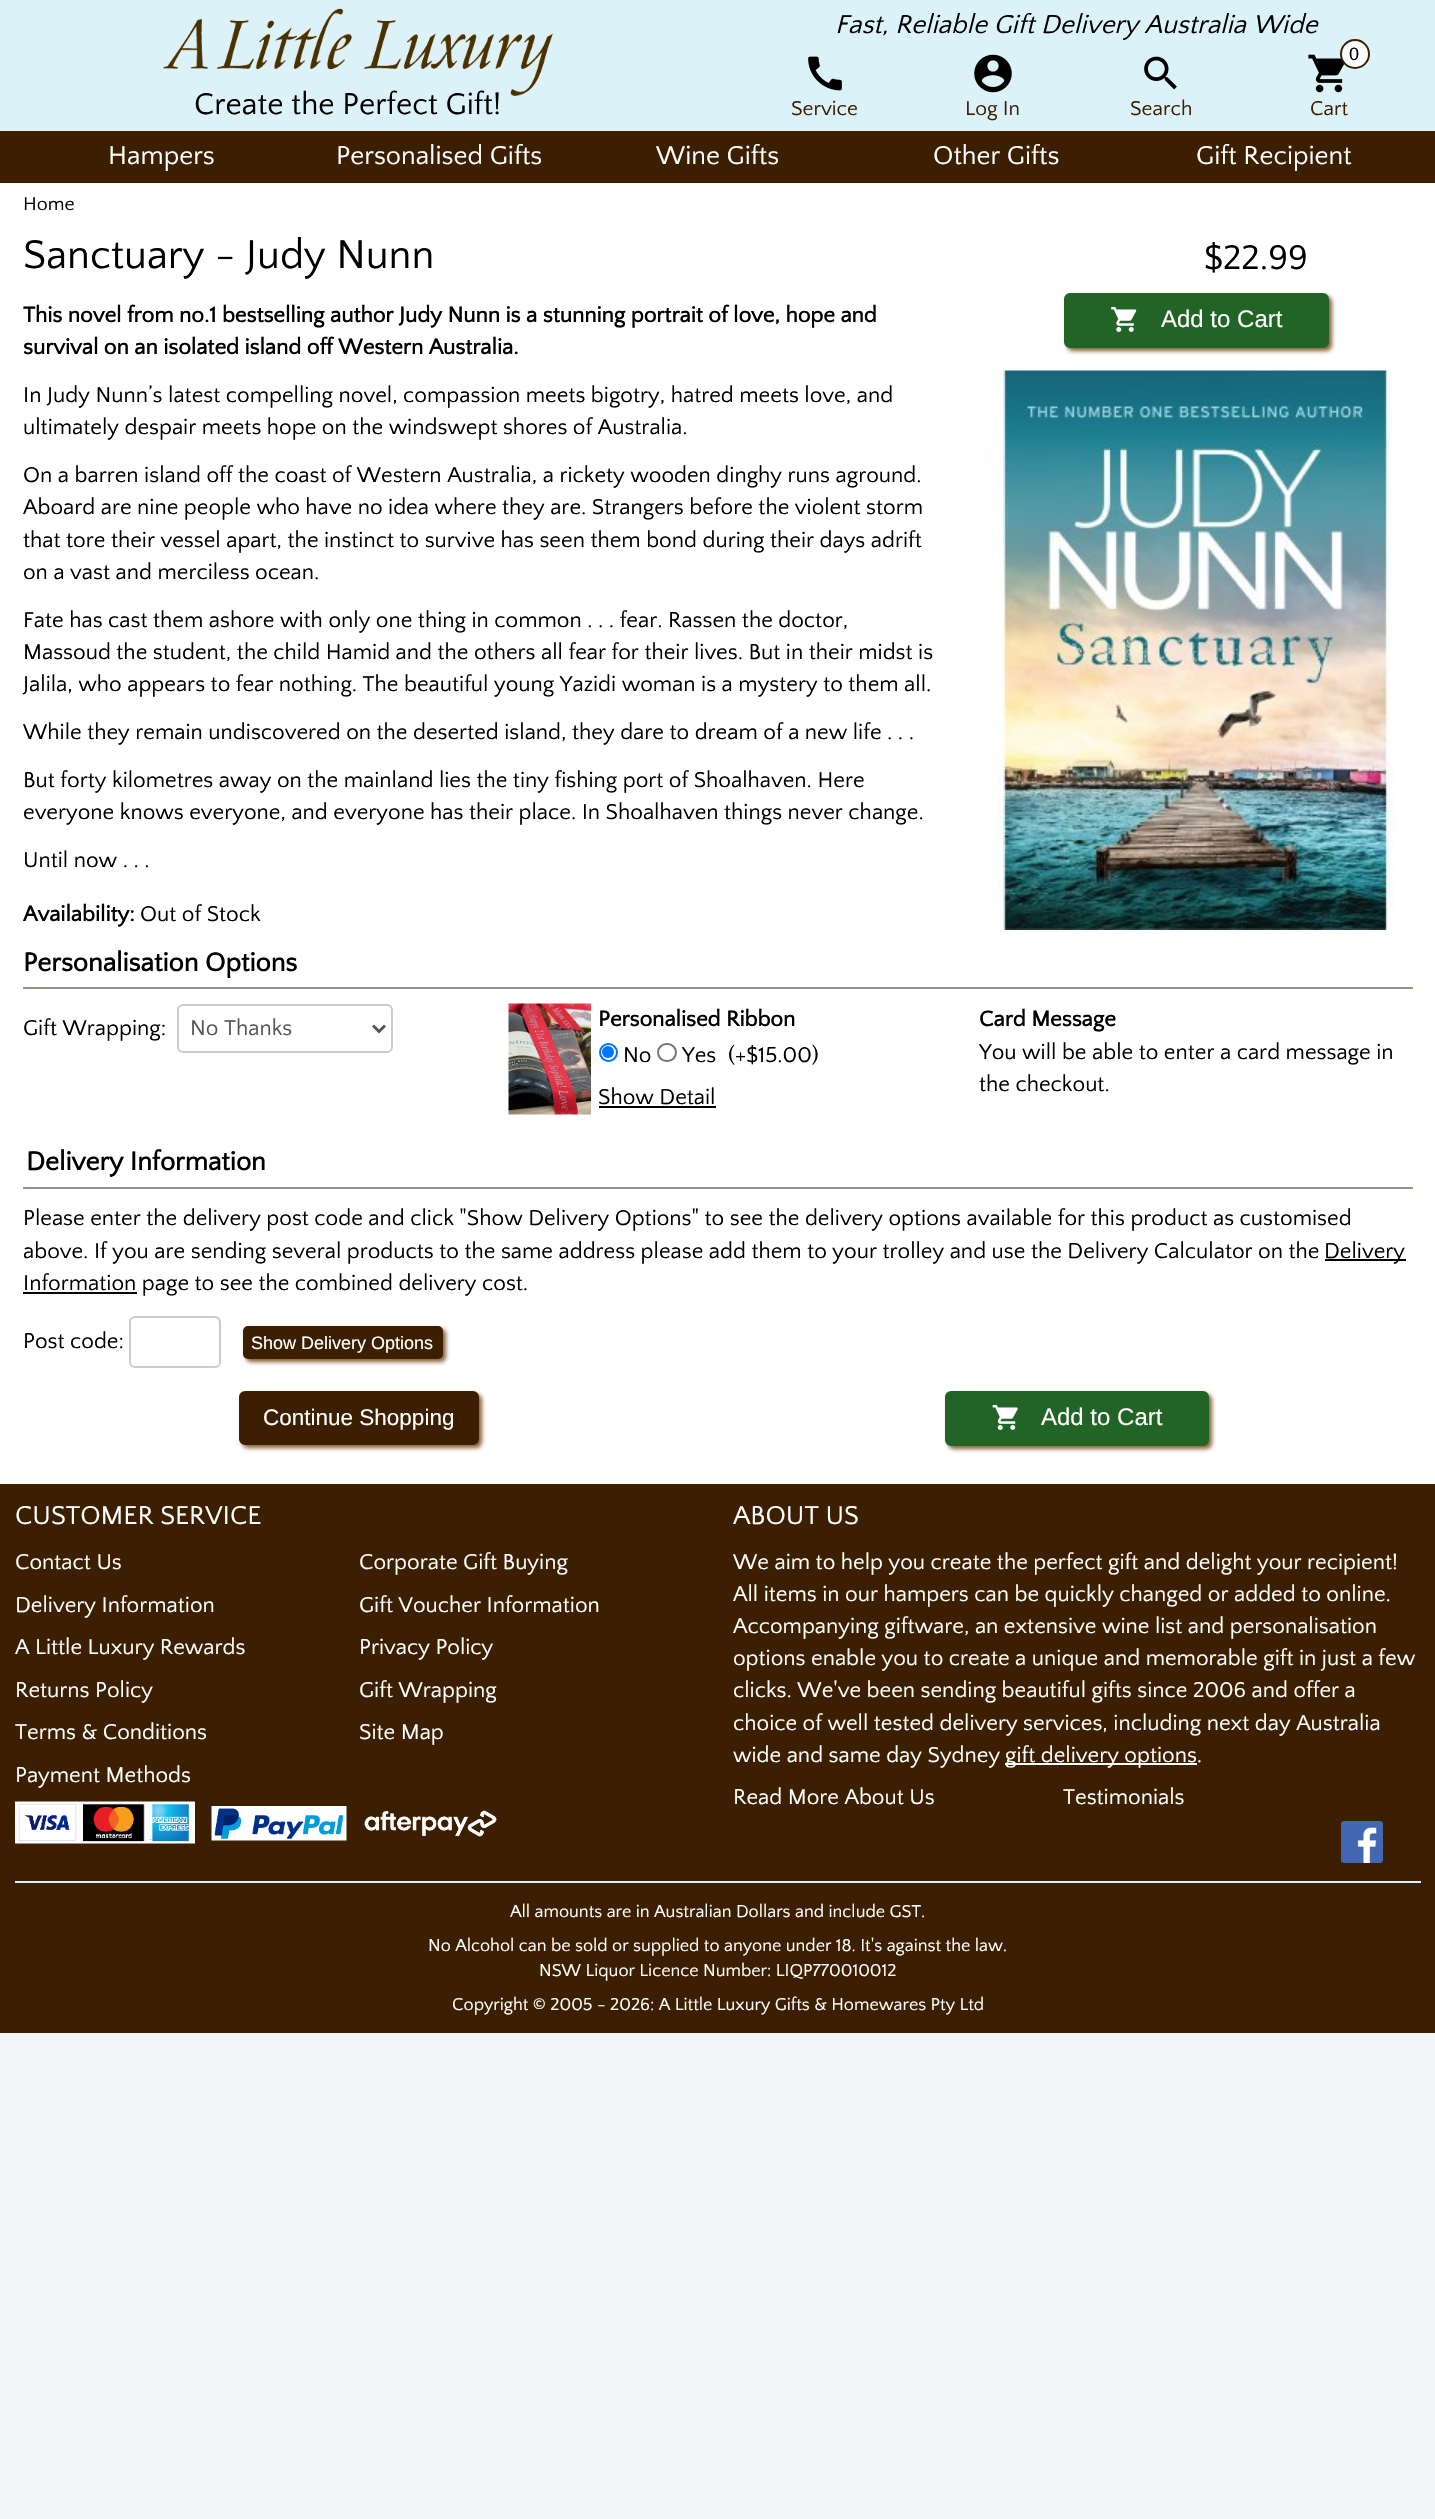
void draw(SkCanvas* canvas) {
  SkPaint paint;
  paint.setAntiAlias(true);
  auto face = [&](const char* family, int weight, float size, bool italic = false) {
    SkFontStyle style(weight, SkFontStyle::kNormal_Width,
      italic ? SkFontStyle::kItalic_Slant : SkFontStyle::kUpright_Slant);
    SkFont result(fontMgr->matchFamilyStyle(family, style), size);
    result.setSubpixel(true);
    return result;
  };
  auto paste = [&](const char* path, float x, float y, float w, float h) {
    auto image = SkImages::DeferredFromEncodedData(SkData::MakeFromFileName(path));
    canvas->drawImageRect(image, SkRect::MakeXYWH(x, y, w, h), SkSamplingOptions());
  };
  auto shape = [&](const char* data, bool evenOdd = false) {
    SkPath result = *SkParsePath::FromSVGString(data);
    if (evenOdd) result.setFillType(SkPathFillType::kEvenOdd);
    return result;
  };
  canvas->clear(0xfff3f6f6);
  paint.setColor(0xffdaf2f8);
  canvas->drawRect(SkRect::MakeXYWH(0, 0, 1435, 131), paint);
  paste("img/1.png", 163, 8, 390, 88);
  paste("img/2.png", 808, 56, 34, 35);
  paste("img/3.png", 974, 54, 38, 39);
  paste("img/4.png", 1144, 56, 33, 34);
  paste("img/5.png", 1308, 54, 36, 39);
  paint.setColor(0xffffffff);
  canvas->drawCircle(1355, 54, 14, paint);
  paint.setStroke(true);
  paint.setStrokeWidth(2);
  paint.setColor(0xff3c1e00);
  canvas->drawCircle(1355, 54, 14, paint);
  paint.setStroke(false);
  canvas->drawRect(SkRect::MakeXYWH(0, 131, 1435, 52), paint);
  paint.setColor(0xffffffff);
  canvas->drawRect(SkRect::MakeXYWH(0, 183, 1435, 1301), paint);
  paint.setColor(0xff896036);
  paint.setMaskFilter(SkMaskFilter::MakeBlur(kNormal_SkBlurStyle, 2));
  canvas->drawRoundRect(SkRect::MakeXYWH(1067, 296, 265, 55), 6, 6, paint);
  paint.setMaskFilter(nullptr);
  paint.setColor(0xff216426);
  canvas->drawRoundRect(SkRect::MakeXYWH(1065, 294, 263, 53), 5, 5, paint);
  paint.setStroke(true);
  canvas->drawRoundRect(SkRect::MakeXYWH(1065, 294, 263, 53), 5, 5, paint);
  paste("img/6.png", 1111, 307, 26, 25);
  paste("img/7.png", 985, 370, 409, 560);
  paint.setStroke(false);
  paint.setColor(0xff9e8f80);
  canvas->drawRect(SkRect::MakeXYWH(23, 987, 1390, 2), paint);
  paint.setColor(0xffececec);
  canvas->drawPath(shape("M183 1006H387C389 1006 392 1009 392 1011V1010C392 1007 390 1005 387 1005H184C182 1005 180 1006 179 1008C180 1007 182 1006 183 1006Z"), paint);
  paint.setStroke(true);
  paint.setColor(0xffcccccc);
  canvas->drawRoundRect(SkRect::MakeXYWH(178, 1005, 214, 47), 5, 5, paint);
  paint.setStrokeWidth(3);
  paint.setColor(0xff555555);
  canvas->drawPath(shape("M373 1025.5L379 1031.5L385 1025.5"), paint);
  paste("img/8.png", 508, 1003, 83, 112);
  paint.setStrokeWidth(2);
  paint.setColor(0xff0075ff);
  canvas->drawCircle(608.5f, 1052.5f, 8.5f, paint);
  paint.setStroke(false);
  canvas->drawCircle(608, 1052, 6, paint);
  paint.setStroke(true);
  paint.setColor(0xff767676);
  canvas->drawRoundRect(SkRect::MakeXYWH(658, 1044, 18, 17), 8.5f, 8.5f, paint);
  paint.setStroke(false);
  {
    const struct { float x, y, w, h; SkColor color; } items[] = {
      {599, 1106, 117, 2, 0xff000000},
      {23, 1187, 1390, 2, 0xff9e8f80},
      {1325, 1259, 81, 2, 0xff000000},
      {23, 1292, 114, 2, 0xff000000},
    };
    for (auto [x, y, w, h, color] : items) {
      paint.setColor(color);
      canvas->drawRect(SkRect::MakeXYWH(x, y, w, h), paint);
    }
  }
  paint.setColor(0xffececec);
  canvas->drawPath(shape("M135 1318H214C217 1318 219 1321 219 1323V1322C219 1319 217 1317 214 1317H136C134 1317 132 1318 131 1320C132 1319 134 1318 135 1318Z"), paint);
  paint.setStroke(true);
  paint.setColor(0xffcccccc);
  canvas->drawRoundRect(SkRect::MakeXYWH(130, 1317, 90, 50), 5, 5, paint);
  paint.setStroke(false);
  paint.setColor(0xff896036);
  paint.setMaskFilter(SkMaskFilter::MakeBlur(kNormal_SkBlurStyle, 2));
  canvas->drawRoundRect(SkRect::MakeXYWH(246, 1329, 200, 33), 5, 5, paint);
  paint.setMaskFilter(nullptr);
  paint.setColor(0xff3c1e00);
  canvas->drawRoundRect(SkRect::MakeXYWH(244, 1327, 198, 31), 4, 4, paint);
  paint.setStroke(true);
  canvas->drawRoundRect(SkRect::MakeXYWH(244, 1327, 198, 31), 4, 4, paint);
  paint.setStroke(false);
  paint.setColor(0xff896036);
  paint.setMaskFilter(SkMaskFilter::MakeBlur(kNormal_SkBlurStyle, 2));
  canvas->drawRoundRect(SkRect::MakeXYWH(242, 1394, 240, 54), 6, 6, paint);
  paint.setMaskFilter(nullptr);
  paint.setColor(0xff3c1e00);
  canvas->drawRoundRect(SkRect::MakeXYWH(240, 1392, 238, 52), 5, 5, paint);
  paint.setStroke(true);
  canvas->drawRoundRect(SkRect::MakeXYWH(240, 1392, 238, 52), 5, 5, paint);
  paint.setStroke(false);
  paint.setColor(0xff896036);
  paint.setMaskFilter(SkMaskFilter::MakeBlur(kNormal_SkBlurStyle, 2));
  canvas->drawRoundRect(SkRect::MakeXYWH(948, 1394, 264, 55), 6, 6, paint);
  paint.setMaskFilter(nullptr);
  paint.setColor(0xff216426);
  canvas->drawRoundRect(SkRect::MakeXYWH(946, 1392, 262, 53), 5, 5, paint);
  paint.setStroke(true);
  canvas->drawRoundRect(SkRect::MakeXYWH(946, 1392, 262, 53), 5, 5, paint);
  paste("img/9.png", 992, 1405, 26, 25);
  paint.setStroke(false);
  paint.setColor(0xff3c1e00);
  canvas->drawRect(SkRect::MakeXYWH(0, 1484, 1435, 549), paint);
  paste("img/10.png", 15, 1801, 180, 43);
  paste("img/11.png", 211, 1806, 136, 35);
  paste("img/12.png", 364, 1810, 133, 27);
  paint.setColor(0xffffffff);
  canvas->drawRect(SkRect::MakeXYWH(1005, 1763, 192, 2), paint);
  paste("img/13.png", 1341, 1821, 42, 42);
  paint.setColor(0xffdaf2f8);
  canvas->drawRect(SkRect::MakeXYWH(15, 1881, 1406, 2), paint);
  auto f0 = face("Quattrocento Sans", 400, 31.5f);
  paint.setColor(0xff000000);
  canvas->drawString("Create the Perfect Gift!", 194, 114, f0, paint);
  auto f1 = face("Quattrocento Sans", 400, 27, true);
  canvas->drawString("Fast, Reliable Gift Delivery Australia Wide", 835, 33, f1, paint);
  auto f2 = face("Quattrocento Sans", 400, 21);
  paint.setColor(0xff3c1e00);
  {
    const struct { const char* s; float x, y; } items[] = {
      {"Service", 791, 115},
      {"Log In", 965, 115},
      {"Search", 1130, 115},
    };
    for (auto [s, x, y] : items) {
      canvas->drawString(s, x, y, f2, paint);
    }
  }
  auto f3 = face("Liberation Sans", 400, 18);
  paint.setColor(0xff000000);
  canvas->drawString("0", 1349, 60, f3, paint);
  paint.setColor(0xff3c1e00);
  canvas->drawString("Cart", 1310, 115, f2, paint);
  auto f4 = face("Quattrocento Sans", 400, 27);
  paint.setColor(0xffffffff);
  {
    const struct { const char* s; float x, y; } items[] = {
      {"Hampers", 108, 164},
      {"Personalised Gifts", 336, 164},
      {"Wine Gifts", 656, 164},
      {"Other Gifts", 933, 164},
      {"Gift Recipient", 1196, 164},
    };
    for (auto [s, x, y] : items) {
      canvas->drawString(s, x, y, f4, paint);
    }
  }
  auto f5 = face("Quattrocento Sans", 400, 19.5f);
  paint.setColor(0xff000000);
  canvas->drawString("Home", 23, 210, f5, paint);
  auto f6 = face("Quattrocento Sans", 400, 42);
  canvas->drawString("Sanctuary - Judy Nunn", 23, 268, f6, paint);
  auto f7 = face("Quattrocento Sans", 400, 36);
  canvas->drawString("$22.99", 1204, 269, f7, paint);
  auto f8 = face("Quattrocento Sans", 700, 22.5f);
  canvas->drawString("This novel from no.1 bestselling author Judy Nunn is a stunning portrait of love, hope and", 23, 322, f8, paint);
  canvas->drawString("survival on an isolated island off Western Australia.", 23, 354, f8, paint);
  auto f9 = face("Quattrocento Sans", 400, 22.5f);
  {
    const struct { const char* s; float x, y; } items[] = {
      {"In Judy Nunn’s latest compelling novel, compassion meets bigotry, hatred meets love, and", 23, 402},
      {"ultimately despair meets hope on the windswept shores of Australia.", 23, 434},
      {"On a barren island off the coast of Western Australia, a rickety wooden dinghy runs aground.", 23, 482},
      {"Aboard are nine people who have no idea where they are. Strangers before the violent storm", 23, 514},
      {"that tore their vessel apart, the instinct to survive has seen them bond during their days adrift", 23, 547},
      {"on a vast and merciless ocean.", 23, 579},
      {"Fate has cast them ashore with only one thing in common . . . fear. Rassen the doctor,", 23, 627},
      {"Massoud the student, the child Hamid and the others all fear for their lives. But in their midst is", 23, 659},
      {"Jalila, who appears to fear nothing. The beautiful young Yazidi woman is a mystery to them all.", 23, 691},
      {"While they remain undiscovered on the deserted island, they dare to dream of a new life . . .", 23, 739},
      {"But forty kilometres away on the mainland lies the tiny fishing port of Shoalhaven. Here", 23, 787},
      {"everyone knows everyone, and everyone has their place. In Shoalhaven things never change.", 23, 819},
      {"Until now . . .", 23, 867},
    };
    for (auto [s, x, y] : items) {
      canvas->drawString(s, x, y, f9, paint);
    }
  }
  canvas->drawString("Availability:", 23, 921, f8, paint);
  canvas->drawString("Out of Stock", 140, 921, f9, paint);
  auto f10 = face("Liberation Sans", 400, 24);
  paint.setColor(0xffffffff);
  canvas->drawString("Add to Cart", 1161, 327, f10, paint);
  auto f11 = face("Quattrocento Sans", 700, 27);
  paint.setColor(0xff000000);
  canvas->drawString("Personalisation Options", 23, 971, f11, paint);
  canvas->drawString("Gift Wrapping:", 23, 1035, f9, paint);
  paint.setColor(0xff555555);
  canvas->drawString("No Thanks", 190, 1035, f9, paint);
  paint.setColor(0xff000000);
  canvas->drawString("Personalised Ribbon", 598, 1026, f8, paint);
  {
    const struct { const char* s; float x, y; } items[] = {
      {"No", 623, 1062},
      {"Yes", 682, 1062},
      {"(+$15.00)", 728, 1062},
      {"Show Detail", 598, 1104},
    };
    for (auto [s, x, y] : items) {
      canvas->drawString(s, x, y, f9, paint);
    }
  }
  canvas->drawString("Card Message", 979, 1026, f8, paint);
  canvas->drawString("You will be able to enter a card message in", 979, 1059, f9, paint);
  canvas->drawString("the checkout.", 979, 1091, f9, paint);
  canvas->drawString("Delivery Information", 26, 1170, f11, paint);
  {
    const struct { const char* s; float x, y; } items[] = {
      {"Please enter the delivery post code and click \"Show Delivery Options\" to see the delivery options available for this product as customised", 23, 1225},
      {"above. If you are sending several products to the same address please add them to your trolley and use the Delivery Calculator on the", 23, 1258},
      {"Delivery", 1324, 1258},
      {"Information page to see the combined delivery cost.", 23, 1290},
      {"Post code:", 23, 1348},
    };
    for (auto [s, x, y] : items) {
      canvas->drawString(s, x, y, f9, paint);
    }
  }
  paint.setColor(0xffffffff);
  canvas->drawString("Show Delivery Options", 251, 1349, f3, paint);
  auto f12 = face("Liberation Sans", 400, 22.5f);
  canvas->drawString("Continue Shopping", 263, 1425, f12, paint);
  canvas->drawString("Add to Cart", 1041, 1425, f10, paint);
  canvas->drawString("CUSTOMER SERVICE", 15, 1524, f4, paint);
  {
    const struct { const char* s; float x, y; } items[] = {
      {"Contact Us", 15, 1569},
      {"Delivery Information", 15, 1612},
      {"A Little Luxury Rewards", 15, 1654},
      {"Returns Policy", 15, 1697},
      {"Terms & Conditions", 15, 1739},
      {"Payment Methods", 15, 1782},
      {"Corporate Gift Buying", 359, 1569},
      {"Gift Voucher Information", 359, 1612},
      {"Privacy Policy", 359, 1654},
      {"Gift Wrapping", 359, 1697},
      {"Site Map", 359, 1739},
    };
    for (auto [s, x, y] : items) {
      canvas->drawString(s, x, y, f9, paint);
    }
  }
  canvas->drawString("ABOUT US", 733, 1524, f4, paint);
  {
    const struct { const char* s; float x, y; } items[] = {
      {"We aim to help you create the perfect gift and delight your recipient!", 733, 1569},
      {"All items in our hampers can be quickly changed or added to online.", 733, 1601},
      {"Accompanying giftware, an extensive wine list and personalisation", 733, 1633},
      {"options enable you to create a unique and memorable gift in just a few", 733, 1665},
      {"clicks. We've been sending beautiful gifts since 2006 and offer a", 733, 1697},
      {"choice of well tested delivery services, including next day Australia", 733, 1730},
      {"wide and same day Sydney", 733, 1762},
      {"gift delivery options.", 1005, 1762},
      {"Read More About Us", 733, 1804},
      {"Testimonials", 1063, 1804},
    };
    for (auto [s, x, y] : items) {
      canvas->drawString(s, x, y, f9, paint);
    }
  }
  auto f13 = face("Quattrocento Sans", 400, 18);
  {
    const struct { const char* s; float x, y; } items[] = {
      {"All amounts are in Australian Dollars and include GST.", 510, 1917},
      {"No Alcohol can be sold or supplied to anyone under 18. It's against the law.", 428, 1951},
      {"NSW Liquor Licence Number: LIQP770010012", 539, 1976},
      {"Copyright © 2005 - 2026: A Little Luxury Gifts & Homewares Pty Ltd", 452, 2010},
    };
    for (auto [s, x, y] : items) {
      canvas->drawString(s, x, y, f13, paint);
    }
  }
}
